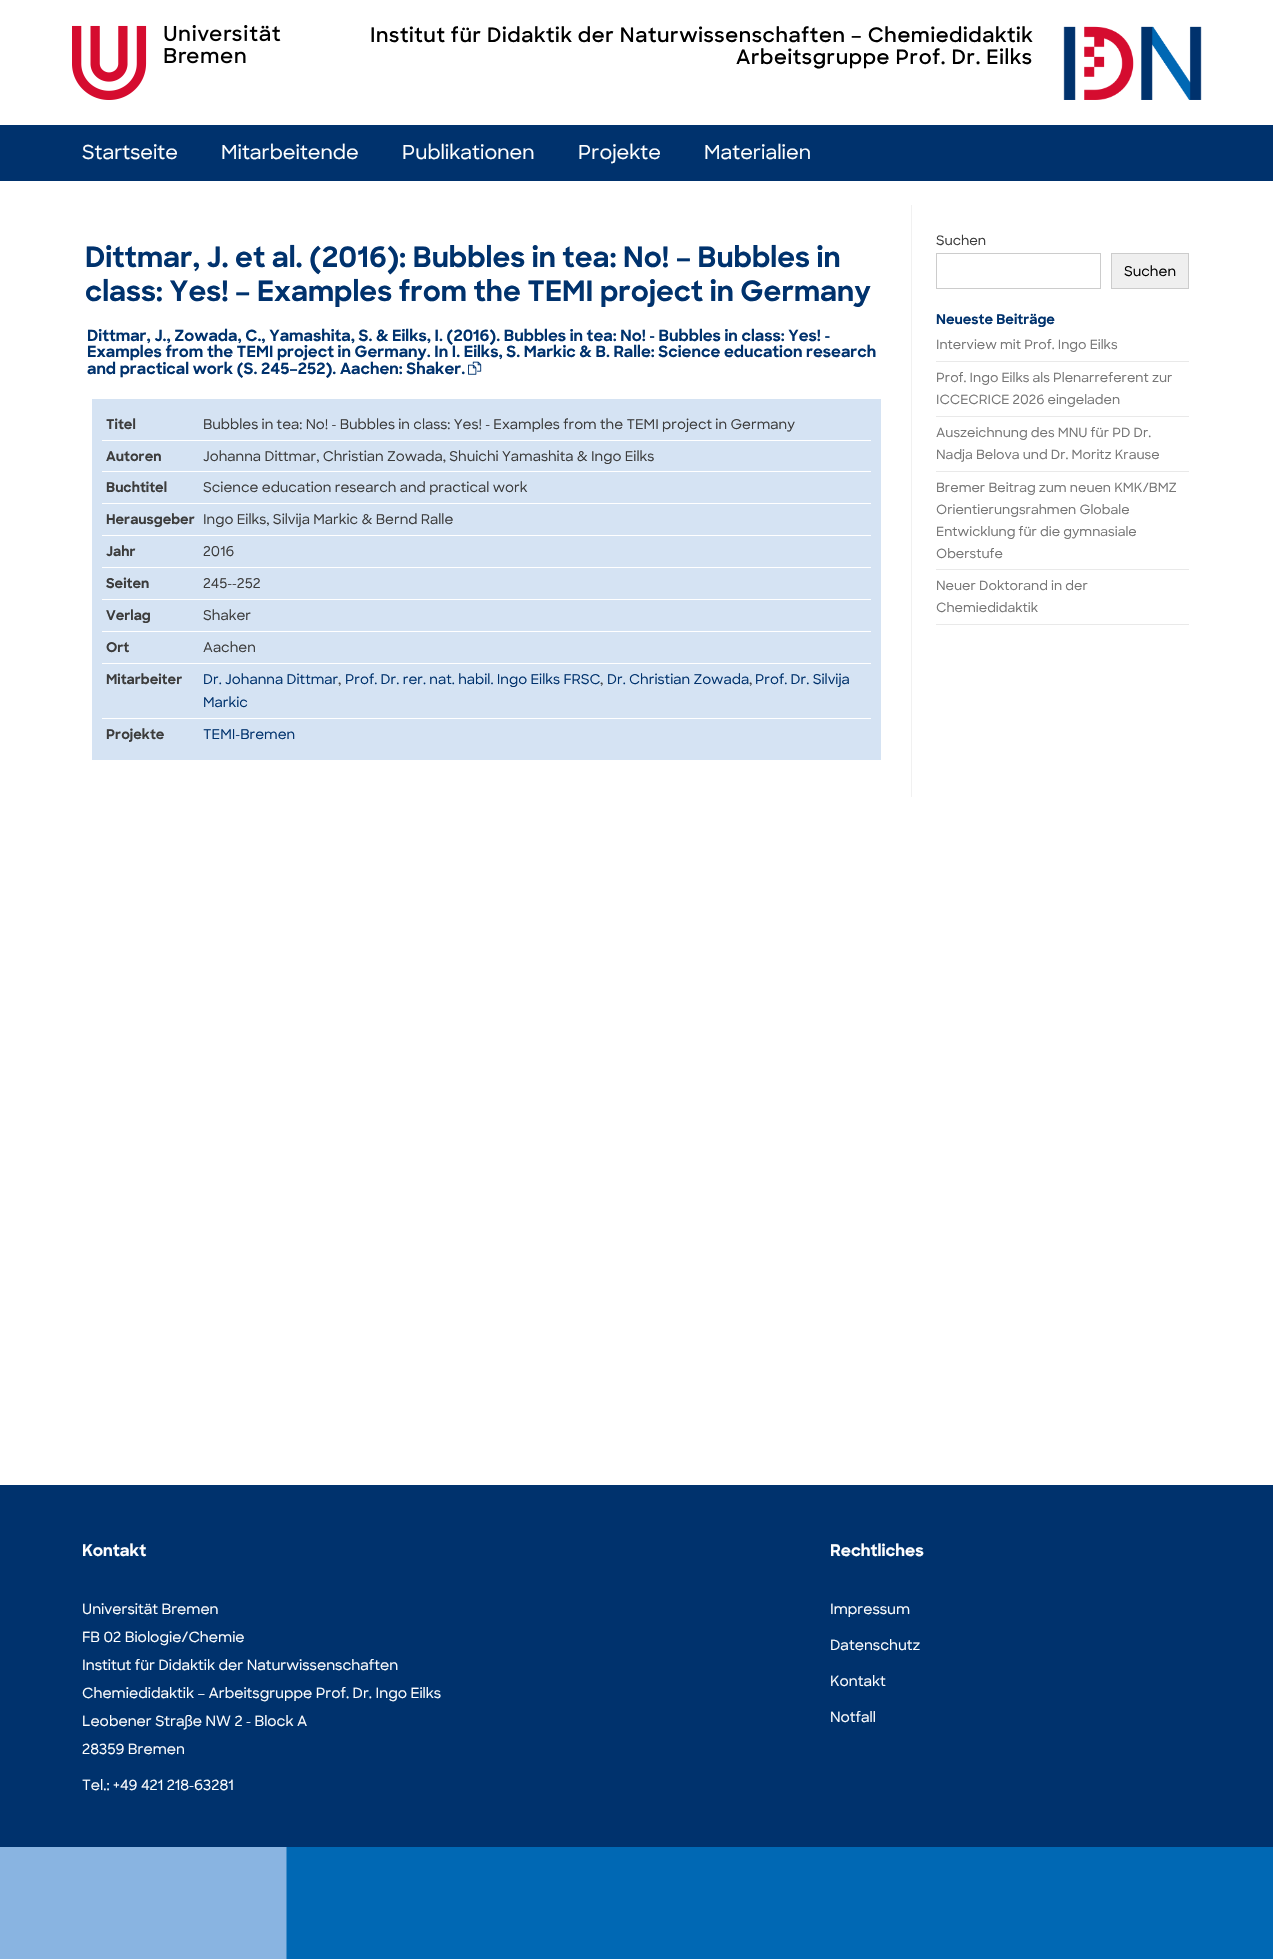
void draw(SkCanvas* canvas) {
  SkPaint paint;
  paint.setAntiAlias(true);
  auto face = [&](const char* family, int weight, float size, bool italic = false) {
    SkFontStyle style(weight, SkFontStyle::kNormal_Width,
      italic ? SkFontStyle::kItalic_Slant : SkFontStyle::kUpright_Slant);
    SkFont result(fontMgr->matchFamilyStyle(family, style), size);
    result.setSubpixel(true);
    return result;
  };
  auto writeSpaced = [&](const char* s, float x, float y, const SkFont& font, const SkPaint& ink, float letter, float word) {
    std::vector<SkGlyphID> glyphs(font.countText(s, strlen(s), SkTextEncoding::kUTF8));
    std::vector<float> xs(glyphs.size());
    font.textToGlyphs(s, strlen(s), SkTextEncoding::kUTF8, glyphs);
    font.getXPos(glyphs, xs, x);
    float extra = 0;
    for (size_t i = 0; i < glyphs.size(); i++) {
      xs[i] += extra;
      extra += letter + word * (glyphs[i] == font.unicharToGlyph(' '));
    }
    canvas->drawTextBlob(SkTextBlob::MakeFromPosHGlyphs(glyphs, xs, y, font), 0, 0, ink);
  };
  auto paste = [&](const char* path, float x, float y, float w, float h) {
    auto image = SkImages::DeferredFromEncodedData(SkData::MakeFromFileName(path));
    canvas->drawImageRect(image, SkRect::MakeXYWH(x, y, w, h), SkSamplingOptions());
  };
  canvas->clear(0xffffffff);
  paste("img/1.png", 72, 25, 209, 75);
  paste("img/2.png", 1063, 26, 139, 74);
  paint.setColor(0xff00326d);
  canvas->drawRect(SkRect::MakeXYWH(0, 125, 1273, 56), paint);
  paint.setColor(0xfff1f1f1);
  canvas->drawRect(SkRect::MakeXYWH(911, 205, 1, 592), paint);
  paste("img/3.png", 468, 361, 14, 14);
  {
    const struct { float x, y, w, h; SkColor color; } items[] = {
      {102, 399, 769, 351, 0xffd5e3f3},
      {97, 440, 779, 1, 0xffffffff},
      {97, 471, 779, 1, 0xffffffff},
      {97, 503, 779, 1, 0xffffffff},
      {97, 535, 779, 1, 0xffffffff},
      {97, 567, 779, 1, 0xffffffff},
      {97, 599, 779, 1, 0xffffffff},
      {97, 631, 779, 1, 0xffffffff},
      {97, 663, 779, 1, 0xffffffff},
      {97, 718, 779, 1, 0xffffffff},
      {871, 399, 10, 351, 0xffd5e3f3},
      {102, 750, 779, 10, 0xffd5e3f3},
      {92, 399, 10, 361, 0xffd5e3f3},
    };
    for (auto [x, y, w, h, color] : items) {
      paint.setColor(color);
      canvas->drawRect(SkRect::MakeXYWH(x, y, w, h), paint);
    }
  }
  paint.setStroke(true);
  paint.setStrokeWidth(1);
  paint.setColor(0xffcccccc);
  canvas->drawRect(SkRect::MakeXYWH(936.5f, 253.5f, 164, 35), paint);
  paint.setStroke(false);
  paint.setColor(0xffefefef);
  canvas->drawRect(SkRect::MakeXYWH(1111.5f, 253.5f, 77, 35), paint);
  paint.setStroke(true);
  paint.setColor(0xffcccccc);
  canvas->drawRect(SkRect::MakeXYWH(1111.5f, 253.5f, 77, 35), paint);
  paint.setStroke(false);
  {
    const struct { float x, y, w, h; SkColor color; } items[] = {
      {936, 361, 253, 1, 0xffe9e9e9},
      {936, 416, 253, 1, 0xffe9e9e9},
      {936, 471, 253, 1, 0xffe9e9e9},
      {936, 569, 253, 1, 0xffe9e9e9},
      {936, 624, 253, 1, 0xffe9e9e9},
      {0, 1485, 1273, 362, 0xff00326d},
    };
    for (auto [x, y, w, h, color] : items) {
      paint.setColor(color);
      canvas->drawRect(SkRect::MakeXYWH(x, y, w, h), paint);
    }
  }
  paste("img/4.png", 0, 1847, 1273, 112);
  auto f0 = face("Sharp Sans", 600, 20);
  paint.setColor(0xff000000);
  writeSpaced("Institut für Didaktik der Naturwissenschaften – Chemiedidaktik", 370, 42, f0, paint, 0.6f, 0);
  writeSpaced("Arbeitsgruppe Prof. Dr. Eilks", 736, 64, f0, paint, 0.6f, 0);
  auto f1 = face("Sharp Sans", 500, 19.25f);
  paint.setColor(0xffffffff);
  {
    const struct { const char* s; float x, y; } items[] = {
      {"Startseite", 82, 159},
      {"Mitarbeitende", 221, 159},
      {"Publikationen", 402, 159},
      {"Projekte", 578, 159},
      {"Materialien", 704, 159},
    };
    for (auto [s, x, y] : items) {
      canvas->drawString(s, x, y, f1, paint);
    }
  }
  auto f2 = face("Sharp Sans", 700, 28);
  paint.setColor(0xff00326d);
  canvas->drawString("Dittmar, J. et al. (2016): Bubbles in tea: No! – Bubbles in", 85, 267, f2, paint);
  canvas->drawString("class: Yes! – Examples from the TEMI project in Germany", 85, 301, f2, paint);
  auto f3 = face("Sharp Sans", 700, 15.5f);
  {
    const struct { const char* s; float x, y; } items[] = {
      {"Dittmar, J., Zowada, C., Yamashita, S. & Eilks, I. (2016). Bubbles in tea: No! - Bubbles in class: Yes! -", 87, 341},
      {"Examples from the TEMI project in Germany. In I. Eilks, S. Markic & B. Ralle: Science education research", 87, 357},
      {"and practical work (S. 245–252). Aachen: Shaker.", 87, 374},
    };
    for (auto [s, x, y] : items) {
      canvas->drawString(s, x, y, f3, paint);
    }
  }
  auto f4 = face("Sharp Sans", 700, 13.5f);
  paint.setColor(0xff3c3c3c);
  canvas->drawString("Titel", 106, 429, f4, paint);
  auto f5 = face("Sharp Sans", 500, 13.5f);
  canvas->drawString("Bubbles in tea: No! - Bubbles in class: Yes! - Examples from the TEMI project in Germany", 203, 429, f5, paint);
  canvas->drawString("Autoren", 106, 461, f4, paint);
  canvas->drawString("Johanna Dittmar, Christian Zowada, Shuichi Yamashita & Ingo Eilks", 203, 461, f5, paint);
  canvas->drawString("Buchtitel", 106, 492, f4, paint);
  canvas->drawString("Science education research and practical work", 203, 492, f5, paint);
  canvas->drawString("Herausgeber", 106, 524, f4, paint);
  canvas->drawString("Ingo Eilks, Silvija Markic & Bernd Ralle", 203, 524, f5, paint);
  canvas->drawString("Jahr", 106, 556, f4, paint);
  canvas->drawString("2016", 203, 556, f5, paint);
  canvas->drawString("Seiten", 106, 588, f4, paint);
  canvas->drawString("245--252", 203, 588, f5, paint);
  canvas->drawString("Verlag", 106, 620, f4, paint);
  canvas->drawString("Shaker", 203, 620, f5, paint);
  canvas->drawString("Ort", 106, 652, f4, paint);
  canvas->drawString("Aachen", 203, 652, f5, paint);
  canvas->drawString("Mitarbeiter", 106, 684, f4, paint);
  paint.setColor(0xff00326d);
  canvas->drawString("Dr. Johanna Dittmar", 203, 684, f5, paint);
  paint.setColor(0xff3c3c3c);
  canvas->drawString(",", 338, 684, f5, paint);
  paint.setColor(0xff00326d);
  canvas->drawString("Prof. Dr. rer. nat. habil. Ingo Eilks FRSC", 345, 684, f5, paint);
  paint.setColor(0xff3c3c3c);
  canvas->drawString(",", 600, 684, f5, paint);
  paint.setColor(0xff00326d);
  canvas->drawString("Dr. Christian Zowada", 607, 684, f5, paint);
  paint.setColor(0xff3c3c3c);
  canvas->drawString(",", 749, 684, f5, paint);
  paint.setColor(0xff00326d);
  canvas->drawString("Prof. Dr. Silvija", 755, 684, f5, paint);
  canvas->drawString("Markic", 203, 707, f5, paint);
  paint.setColor(0xff3c3c3c);
  canvas->drawString("Projekte", 106, 739, f4, paint);
  paint.setColor(0xff00326d);
  canvas->drawString("TEMI-Bremen", 203, 739, f5, paint);
  auto f6 = face("Sharp Sans", 500, 13);
  paint.setColor(0xff3c3c3c);
  canvas->drawString("Suchen", 936, 245, f6, paint);
  paint.setColor(0xff000000);
  canvas->drawString("Suchen", 1124, 276, f5, paint);
  paint.setColor(0xff00326d);
  canvas->drawString("Neueste Beiträge", 936, 324, f4, paint);
  auto f7 = face("Sharp Sans", 500, 12.75f);
  paint.setColor(0xff757575);
  {
    const struct { const char* s; float x, y; } items[] = {
      {"Interview mit Prof. Ingo Eilks", 936, 349},
      {"Prof. Ingo Eilks als Plenarreferent zur", 936, 382},
      {"ICCECRICE 2026 eingeladen", 936, 404},
      {"Auszeichnung des MNU für PD Dr.", 936, 437},
      {"Nadja Belova und Dr. Moritz Krause", 936, 459},
      {"Bremer Beitrag zum neuen KMK/BMZ", 936, 492},
      {"Orientierungsrahmen Globale", 936, 514},
      {"Entwicklung für die gymnasiale", 936, 536},
      {"Oberstufe", 936, 558},
      {"Neuer Doktorand in der", 936, 590},
      {"Chemiedidaktik", 936, 612},
    };
    for (auto [s, x, y] : items) {
      canvas->drawString(s, x, y, f7, paint);
    }
  }
  auto f8 = face("Sharp Sans", 700, 16);
  paint.setColor(0xffffffff);
  canvas->drawString("Kontakt", 82, 1556, f8, paint);
  auto f9 = face("Sharp Sans", 500, 14);
  {
    const struct { const char* s; float x, y; } items[] = {
      {"Universität Bremen", 82, 1614},
      {"FB 02 Biologie/Chemie", 82, 1642},
      {"Institut für Didaktik der Naturwissenschaften", 82, 1670},
      {"Chemiedidaktik – Arbeitsgruppe Prof. Dr. Ingo Eilks", 82, 1698},
      {"Leobener Straße NW 2 - Block A", 82, 1726},
      {"28359 Bremen", 82, 1754},
      {"Tel.: +49 421 218-63281", 82, 1790},
    };
    for (auto [s, x, y] : items) {
      canvas->drawString(s, x, y, f9, paint);
    }
  }
  canvas->drawString("Rechtliches", 830, 1556, f8, paint);
  {
    const struct { const char* s; float x, y; } items[] = {
      {"Impressum", 830, 1614},
      {"Datenschutz", 830, 1650},
      {"Kontakt", 830, 1686},
      {"Notfall", 830, 1722},
    };
    for (auto [s, x, y] : items) {
      canvas->drawString(s, x, y, f9, paint);
    }
  }
}
